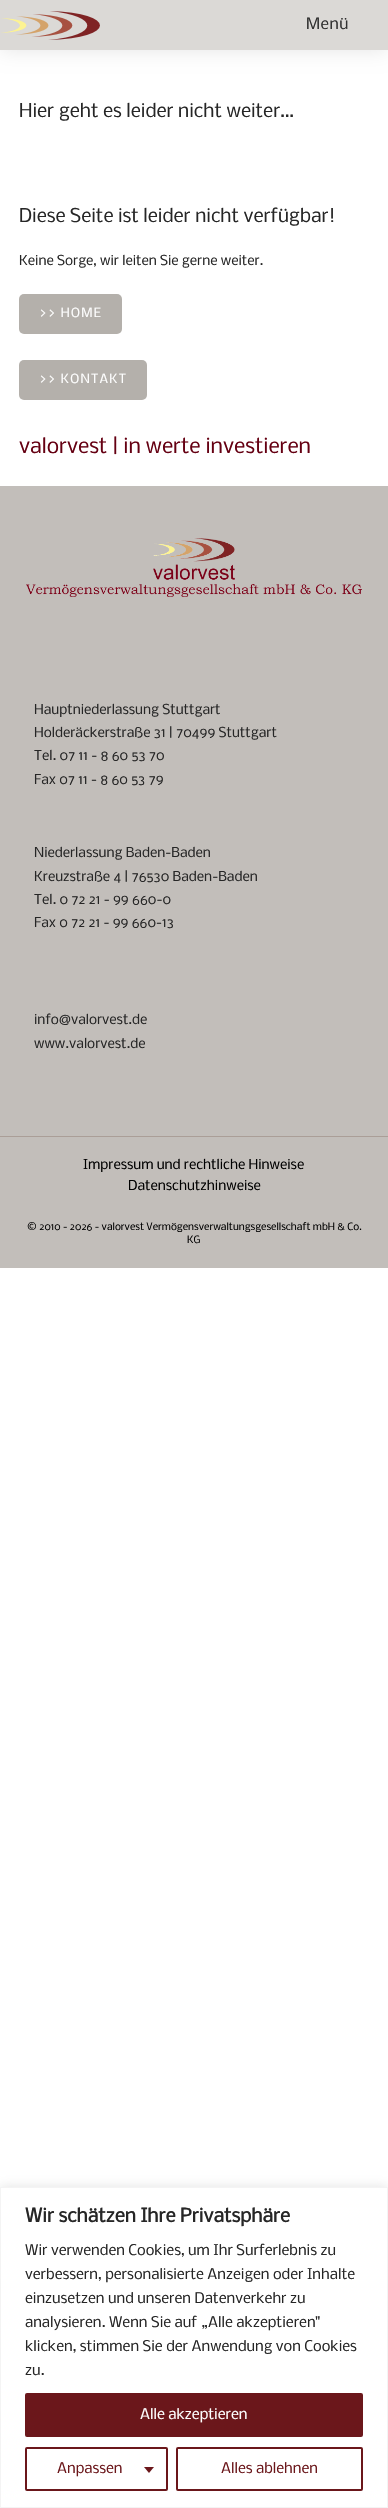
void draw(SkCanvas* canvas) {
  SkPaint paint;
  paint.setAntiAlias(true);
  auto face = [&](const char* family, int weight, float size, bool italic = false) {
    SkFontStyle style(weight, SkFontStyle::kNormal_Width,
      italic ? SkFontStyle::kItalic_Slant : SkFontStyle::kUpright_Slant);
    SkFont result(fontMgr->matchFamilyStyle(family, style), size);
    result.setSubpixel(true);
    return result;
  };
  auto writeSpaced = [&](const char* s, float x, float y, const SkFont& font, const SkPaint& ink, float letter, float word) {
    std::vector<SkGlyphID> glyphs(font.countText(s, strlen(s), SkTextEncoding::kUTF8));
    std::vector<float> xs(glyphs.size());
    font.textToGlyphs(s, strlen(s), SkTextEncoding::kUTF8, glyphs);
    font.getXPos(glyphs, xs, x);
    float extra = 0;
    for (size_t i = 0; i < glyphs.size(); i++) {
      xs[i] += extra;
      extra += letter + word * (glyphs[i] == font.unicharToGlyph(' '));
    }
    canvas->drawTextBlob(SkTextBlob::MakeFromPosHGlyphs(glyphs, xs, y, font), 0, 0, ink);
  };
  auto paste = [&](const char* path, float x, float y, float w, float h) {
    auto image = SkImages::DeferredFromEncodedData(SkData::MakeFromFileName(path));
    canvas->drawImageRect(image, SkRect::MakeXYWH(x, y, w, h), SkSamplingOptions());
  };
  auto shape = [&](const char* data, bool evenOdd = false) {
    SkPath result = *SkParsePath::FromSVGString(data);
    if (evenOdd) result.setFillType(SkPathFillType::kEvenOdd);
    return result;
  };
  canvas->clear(0xffffffff);
  paint.setColor(0x1a000000);
  paint.setMaskFilter(SkMaskFilter::MakeBlur(kNormal_SkBlurStyle, 10));
  canvas->drawRect(SkRect::MakeXYWH(0, 0, 388, 50), paint);
  paint.setMaskFilter(nullptr);
  paint.setColor(0xffdbd9d6);
  canvas->drawRect(SkRect::MakeXYWH(0, 0, 388, 50), paint);
  paste("img/1.png", 1, 11, 99, 29);
  paint.setColor(0xffb4b0ab);
  canvas->drawRoundRect(SkRect::MakeXYWH(19, 294, 103, 40), 5, 5, paint);
  canvas->drawRoundRect(SkRect::MakeXYWH(19, 360, 128, 40), 5, 5, paint);
  paint.setColor(0xffc2beba);
  canvas->drawRect(SkRect::MakeXYWH(0, 486, 388, 650), paint);
  paste("img/2.png", 26, 538, 336, 59);
  canvas->drawRect(SkRect::MakeXYWH(0, 1137, 388, 131), paint);
  paint.setColor(0xffaa9e97);
  canvas->drawRect(SkRect::MakeXYWH(0, 1136, 388, 1), paint);
  paint.setColor(0x4dacabab);
  paint.setMaskFilter(SkMaskFilter::MakeBlur(kNormal_SkBlurStyle, 5));
  canvas->drawRect(SkRect::MakeXYWH(0, 2186, 388, 321), paint);
  paint.setMaskFilter(nullptr);
  paint.setColor(0xffffffff);
  canvas->drawRect(SkRect::MakeXYWH(0.5f, 2187.5f, 387, 320), paint);
  paint.setStroke(true);
  paint.setStrokeWidth(1);
  paint.setColor(0xfff4f4f4);
  canvas->drawRect(SkRect::MakeXYWH(0.5f, 2187.5f, 387, 320), paint);
  paint.setStroke(false);
  paint.setColor(0xff6b171b);
  canvas->drawRoundRect(SkRect::MakeXYWH(26, 2394, 336, 42), 1, 1, paint);
  paint.setStroke(true);
  paint.setStrokeWidth(2);
  canvas->drawRoundRect(SkRect::MakeXYWH(26, 2394, 336, 42), 1, 1, paint);
  canvas->drawRoundRect(SkRect::MakeXYWH(26, 2448, 141, 42), 1, 1, paint);
  paint.setStroke(false);
  canvas->drawPath(shape("M144 2467H154L149 2473Z"), paint);
  paint.setStroke(true);
  canvas->drawRoundRect(SkRect::MakeXYWH(177, 2448, 185, 42), 1, 1, paint);
  auto f0 = face("Nobile", 400, 15);
  paint.setStroke(false);
  paint.setColor(0xff303030);
  writeSpaced("Menü", 306, 29, f0, paint, 0.5f, 0);
  auto f1 = face("Nobile", 400, 18);
  paint.setColor(0xff262626);
  canvas->drawString("Hier geht es leider nicht weiter…", 19, 117, f1, paint);
  canvas->drawString("Diese Seite ist leider nicht verfügbar!", 19, 222, f1, paint);
  auto f2 = face("Nobile", 400, 13);
  canvas->drawString("Keine Sorge, wir leiten Sie gerne weiter.", 19, 265, f2, paint);
  auto f3 = face("Nobile", 400, 12);
  paint.setColor(0xffffffff);
  writeSpaced(">> HOME", 39, 317, f3, paint, 1.25f, 0);
  writeSpaced(">> KONTAKT", 39, 383, f3, paint, 1.25f, 0);
  auto f4 = face("Nobile", 400, 20);
  paint.setColor(0xff650012);
  canvas->drawString("valorvest | in werte investieren", 19, 453, f4, paint);
  paint.setColor(0xff262626);
  {
    const struct { const char* s; float x, y; } items[] = {
      {"Hauptniederlassung Stuttgart", 34, 714},
      {"Holderäckerstraße 31 | 70499 Stuttgart", 34, 737},
      {"Tel. 07 11 - 8 60 53 70", 34, 760},
      {"Fax 07 11 - 8 60 53 79", 34, 784},
      {"Niederlassung Baden-Baden", 34, 857},
      {"Kreuzstraße 4 | 76530 Baden-Baden", 34, 881},
      {"Tel. 0 72 21 - 99 660-0", 34, 904},
      {"Fax 0 72 21 - 99 660-13", 34, 927},
      {"info@valorvest.de", 34, 1024},
      {"www.valorvest.de", 34, 1048},
    };
    for (auto [s, x, y] : items) {
      canvas->drawString(s, x, y, f2, paint);
    }
  }
  paint.setColor(0xff000000);
  canvas->drawString("Impressum und rechtliche Hinweise", 83, 1169, f2, paint);
  canvas->drawString("Datenschutzhinweise", 128, 1190, f2, paint);
  auto f5 = face("Nobile", 400, 9.6f);
  canvas->drawString("© 2010 - 2026 - valorvest Vermögensverwaltungsgesellschaft mbH & Co.", 27, 1230, f5, paint);
  canvas->drawString("KG", 187, 1243, f5, paint);
  auto f6 = face("Nobile", 700, 18);
  paint.setColor(0xff262626);
  canvas->drawString("Wir schätzen Ihre Privatsphäre", 25, 2222, f6, paint);
  auto f7 = face("Nobile", 400, 14);
  {
    const struct { const char* s; float x, y; } items[] = {
      {"Wir verwenden Cookies, um Ihr Surferlebnis zu", 25, 2255},
      {"verbessern, personalisierte Anzeigen oder Inhalte", 25, 2279},
      {"einzusetzen und unseren Datenverkehr zu", 25, 2303},
      {"analysieren. Wenn Sie auf „Alle akzeptieren\"", 25, 2327},
      {"klicken, stimmen Sie der Anwendung von Cookies", 25, 2351},
      {"zu.", 25, 2375},
    };
    for (auto [s, x, y] : items) {
      canvas->drawString(s, x, y, f7, paint);
    }
  }
  paint.setColor(0xffffffff);
  canvas->drawString("Alle akzeptieren", 140, 2419, f7, paint);
  paint.setColor(0xff6b171b);
  canvas->drawString("Anpassen", 57, 2473, f7, paint);
  canvas->drawString("Alles ablehnen", 221, 2473, f7, paint);
}
